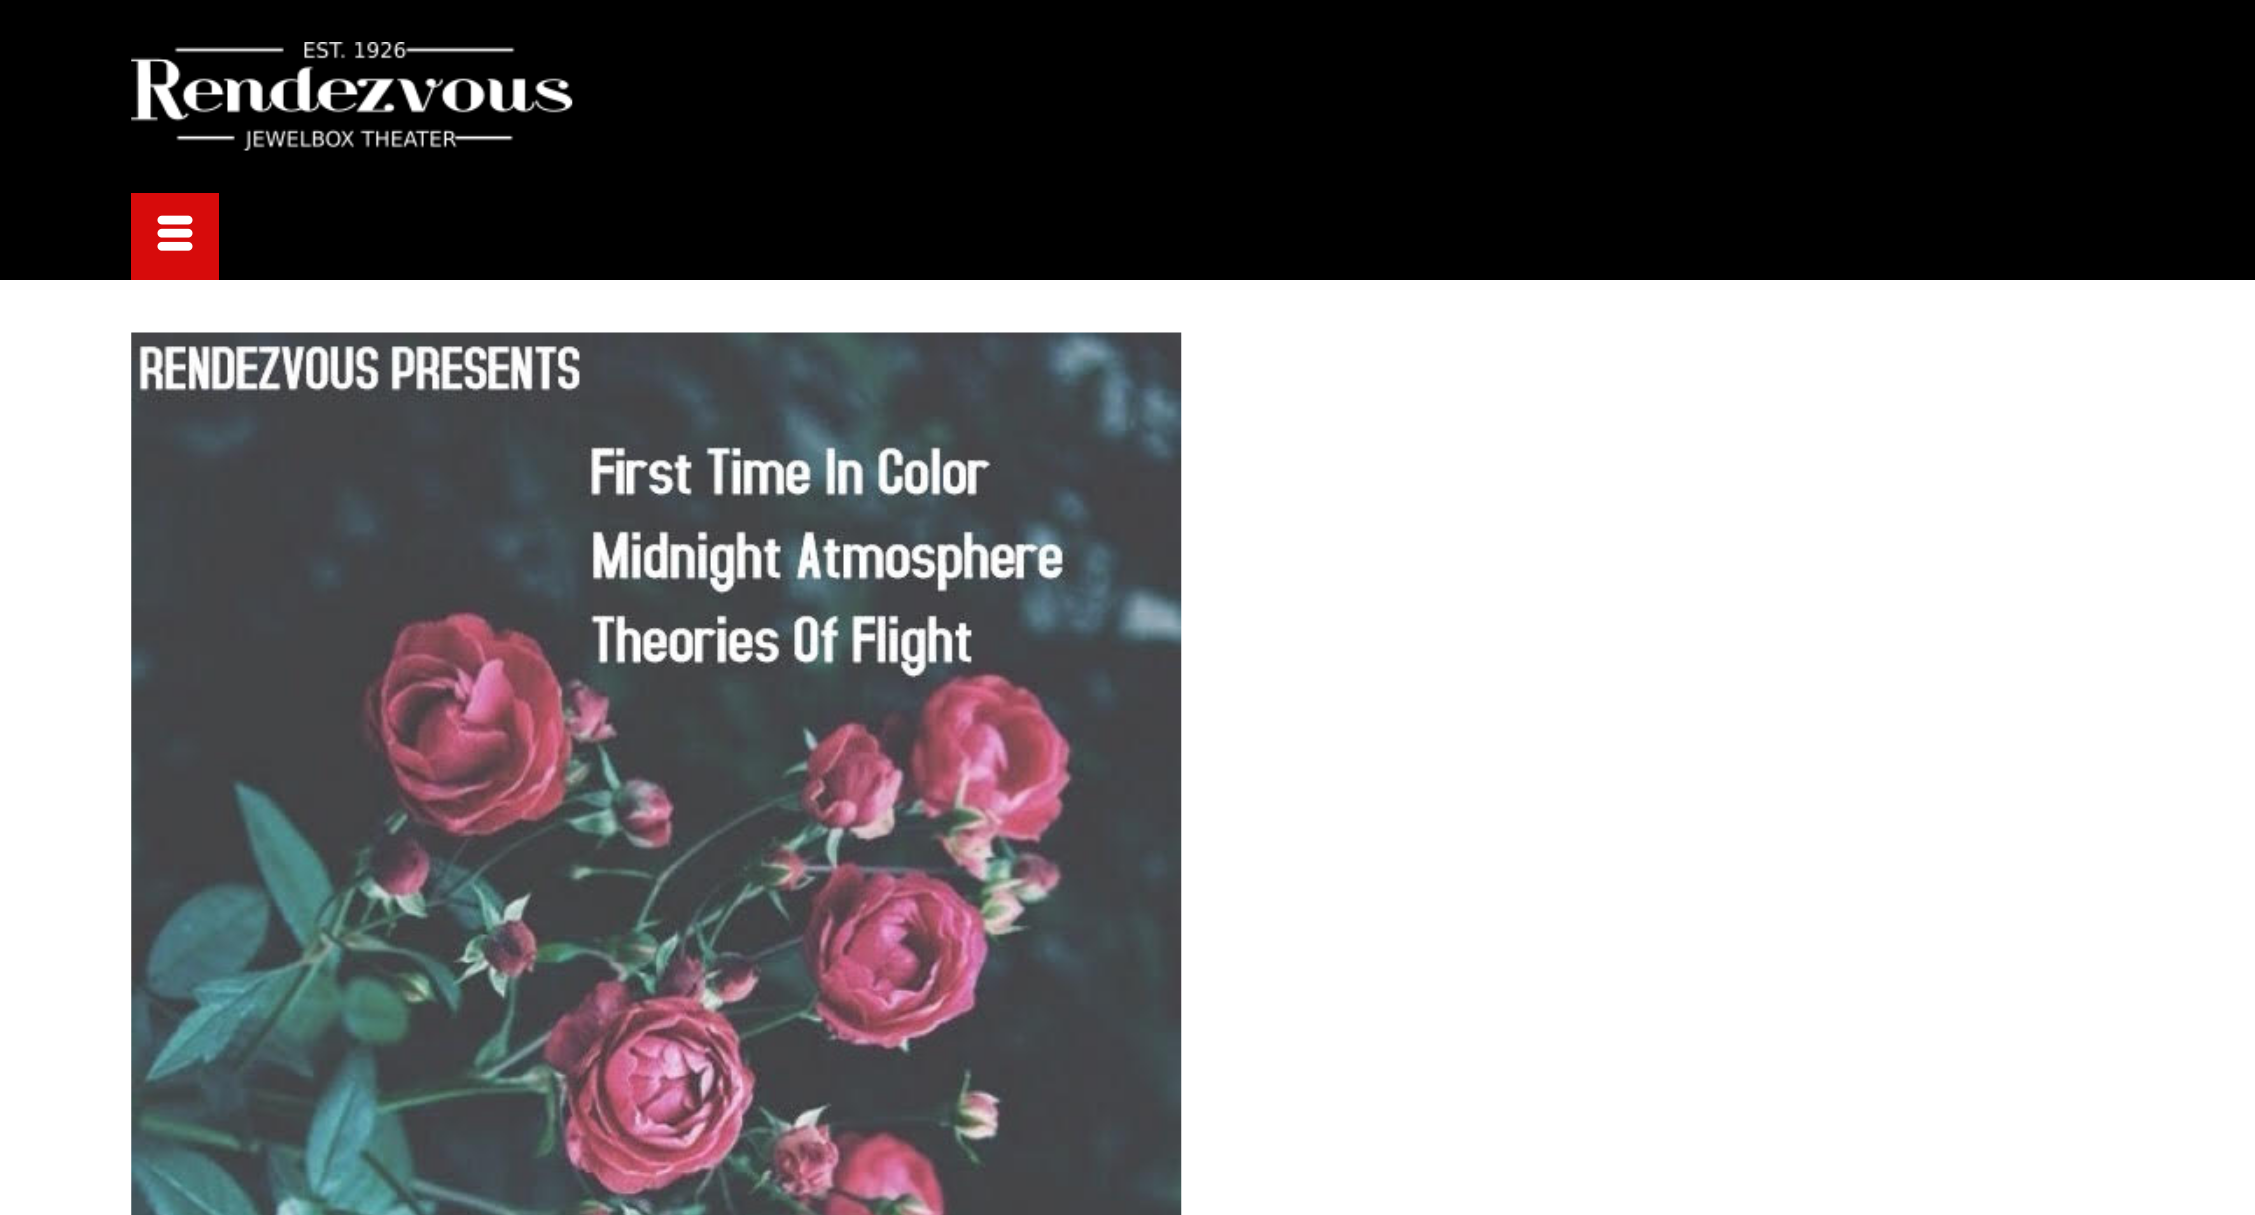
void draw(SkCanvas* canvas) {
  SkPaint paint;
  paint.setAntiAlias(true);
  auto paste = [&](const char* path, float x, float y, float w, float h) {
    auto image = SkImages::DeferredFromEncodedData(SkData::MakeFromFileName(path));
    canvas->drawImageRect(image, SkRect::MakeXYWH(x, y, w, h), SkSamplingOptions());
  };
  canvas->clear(0xff000000);
  paste("img/1.png", 131, 42, 442, 109);
  paint.setColor(0xffd70b0b);
  canvas->drawRect(SkRect::MakeXYWH(131, 193, 88, 87), paint);
  paste("img/2.png", 157, 215, 36, 36);
  paint.setColor(0xffffffff);
  canvas->drawRect(SkRect::MakeXYWH(0, 280, 2255, 935), paint);
  paste("img/3.png", 131, 332, 1051, 883);
}
